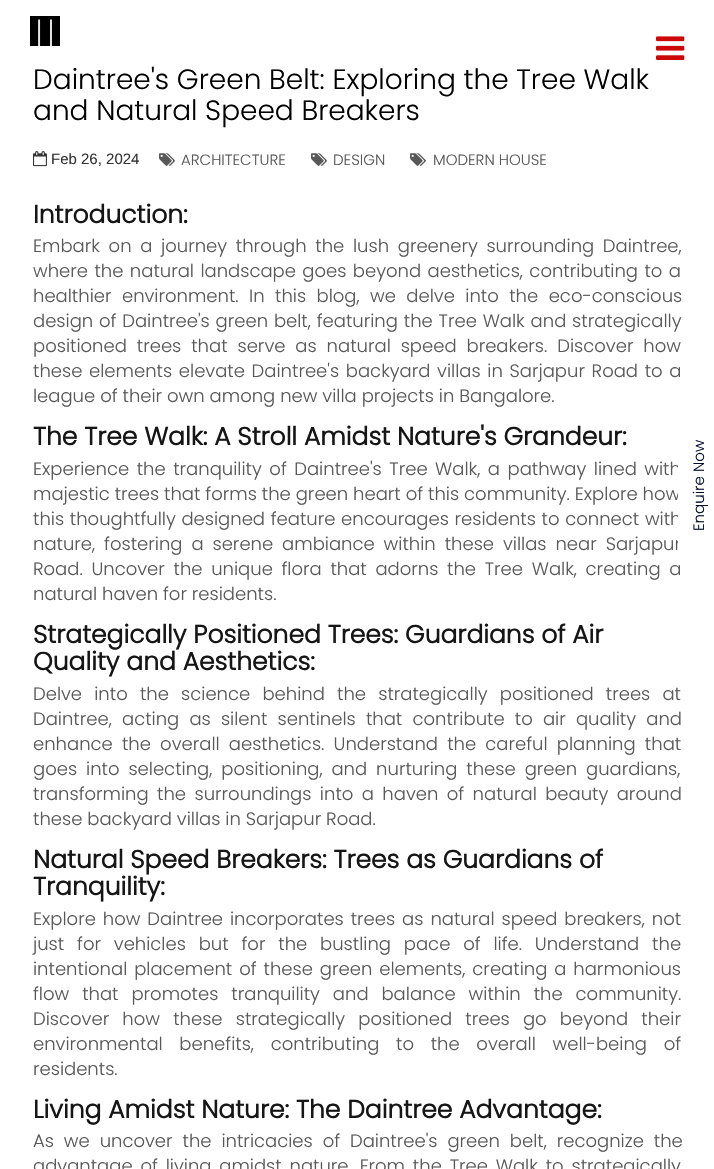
void draw(SkCanvas* canvas) {
  SkPaint paint;
  paint.setAntiAlias(true);
  auto face = [&](const char* family, int weight, float size, bool italic = false) {
    SkFontStyle style(weight, SkFontStyle::kNormal_Width,
      italic ? SkFontStyle::kItalic_Slant : SkFontStyle::kUpright_Slant);
    SkFont result(fontMgr->matchFamilyStyle(family, style), size);
    result.setSubpixel(true);
    return result;
  };
  auto writeSpaced = [&](const char* s, float x, float y, const SkFont& font, const SkPaint& ink, float letter, float word) {
    std::vector<SkGlyphID> glyphs(font.countText(s, strlen(s), SkTextEncoding::kUTF8));
    std::vector<float> xs(glyphs.size());
    font.textToGlyphs(s, strlen(s), SkTextEncoding::kUTF8, glyphs);
    font.getXPos(glyphs, xs, x);
    float extra = 0;
    for (size_t i = 0; i < glyphs.size(); i++) {
      xs[i] += extra;
      extra += letter + word * (glyphs[i] == font.unicharToGlyph(' '));
    }
    canvas->drawTextBlob(SkTextBlob::MakeFromPosHGlyphs(glyphs, xs, y, font), 0, 0, ink);
  };
  auto paste = [&](const char* path, float x, float y, float w, float h) {
    auto image = SkImages::DeferredFromEncodedData(SkData::MakeFromFileName(path));
    canvas->drawImageRect(image, SkRect::MakeXYWH(x, y, w, h), SkSamplingOptions());
  };
  canvas->clear(0xffffffff);
  paste("img/1.png", 656, 36, 29, 24);
  paste("img/2.png", 30, 16, 30, 30);
  paste("img/3.png", 33, 151, 14, 16);
  paste("img/4.png", 159, 153, 16, 13);
  paste("img/4.png", 311, 153, 16, 13);
  paste("img/4.png", 410, 153, 16, 13);
  auto f0 = face("Poppins", 300, 28);
  paint.setColor(0xff000000);
  canvas->drawString("Daintree's Green Belt: Exploring the Tree Walk", 33, 89, f0, paint);
  canvas->drawString("and Natural Speed Breakers", 33, 120, f0, paint);
  auto f1 = face("Liberation Sans", 400, 15);
  paint.setColor(0xff333333);
  canvas->drawString("Feb 26, 2024", 51, 164, f1, paint);
  auto f2 = face("Poppins", 300, 15);
  paint.setColor(0xff585858);
  {
    const struct { const char* s; float x, y; } items[] = {
      {"ARCHITECTURE", 181, 165},
      {"DESIGN", 333, 165},
      {"MODERN HOUSE", 433, 165},
    };
    for (auto [s, x, y] : items) {
      canvas->drawString(s, x, y, f2, paint);
    }
  }
  auto f3 = face("Poppins", 700, 25);
  paint.setColor(0xff161616);
  canvas->drawString("Introduction:", 33, 223, f3, paint);
  auto f4 = face("Poppins", 300, 18);
  paint.setColor(0xff585858);
  writeSpaced("Embark on a journey through the lush greenery surrounding Daintree,", 33, 252, f4, paint, 0, 3.75f);
  writeSpaced("where the natural landscape goes beyond aesthetics, contributing to a", 33, 277, f4, paint, 0, 1.5f);
  writeSpaced("healthier environment. In this blog, we delve into the eco-conscious", 33, 302, f4, paint, 0, 5.5f);
  writeSpaced("design of Daintree's green belt, featuring the Tree Walk and strategically", 33, 327, f4, paint, 0, 0.9f);
  writeSpaced("positioned trees that serve as natural speed breakers. Discover how", 33, 352, f4, paint, 0, 5);
  writeSpaced("these elements elevate Daintree's backyard villas in Sarjapur Road to a", 33, 377, f4, paint, 0, 1.75f);
  canvas->drawString("league of their own among new villa projects in Bangalore.", 33, 402, f4, paint);
  paint.setColor(0xff161616);
  canvas->drawString("The Tree Walk: A Stroll Amidst Nature's Grandeur:", 33, 445, f3, paint);
  paint.setColor(0xff585858);
  writeSpaced("Experience the tranquility of Daintree's Tree Walk, a pathway lined with", 33, 475, f4, paint, 0, 2.6f);
  canvas->drawString("majestic trees that forms the green heart of this community. Explore how", 33, 500, f4, paint);
  writeSpaced("this thoughtfully designed feature encourages residents to connect with", 33, 525, f4, paint, 0, 0.75f);
  writeSpaced("nature, fostering a serene ambiance within these villas near Sarjapur", 33, 550, f4, paint, 0, 4);
  writeSpaced("Road. Uncover the unique flora that adorns the Tree Walk, creating a", 33, 575, f4, paint, 0, 3.75f);
  canvas->drawString("natural haven for residents.", 33, 600, f4, paint);
  paint.setColor(0xff161616);
  canvas->drawString("Strategically Positioned Trees: Guardians of Air", 33, 643, f3, paint);
  canvas->drawString("Quality and Aesthetics:", 33, 670, f3, paint);
  paint.setColor(0xff585858);
  writeSpaced("Delve into the science behind the strategically positioned trees at", 33, 700, f4, paint, 0, 7.25f);
  writeSpaced("Daintree, acting as silent sentinels that contribute to air quality and", 33, 725, f4, paint, 0, 5.25f);
  writeSpaced("enhance the overall aesthetics. Understand the careful planning that", 33, 750, f4, paint, 0, 4.25f);
  writeSpaced("goes into selecting, positioning, and nurturing these green guardians,", 33, 775, f4, paint, 0, 4);
  writeSpaced("transforming the surroundings into a haven of natural beauty around", 33, 800, f4, paint, 0, 3.5f);
  canvas->drawString("these backyard villas in Sarjapur Road.", 33, 825, f4, paint);
  paint.setColor(0xff161616);
  canvas->drawString("Natural Speed Breakers: Trees as Guardians of", 33, 868, f3, paint);
  canvas->drawString("Tranquility:", 33, 895, f3, paint);
  paint.setColor(0xff585858);
  writeSpaced("Explore how Daintree incorporates trees as natural speed breakers, not", 33, 925, f4, paint, 0, 2);
  writeSpaced("just for vehicles but for the bustling pace of life. Understand the", 33, 950, f4, paint, 0, 7.9f);
  writeSpaced("intentional placement of these green elements, creating a harmonious", 33, 975, f4, paint, 0, 2);
  writeSpaced("flow that promotes tranquility and balance within the community.", 33, 1000, f4, paint, 0, 8);
  writeSpaced("Discover how these strategically positioned trees go beyond their", 33, 1025, f4, paint, 0, 8.25f);
  writeSpaced("environmental benefits, contributing to the overall well-being of", 33, 1050, f4, paint, 0, 11.75f);
  canvas->drawString("residents.", 33, 1075, f4, paint);
  paint.setColor(0xff161616);
  canvas->drawString("Living Amidst Nature: The Daintree Advantage:", 33, 1118, f3, paint);
  paint.setColor(0xff585858);
  writeSpaced("As we uncover the intricacies of Daintree's green belt, recognize the", 33, 1147, f4, paint, 0, 5);
  writeSpaced("advantage of living amidst nature. From the Tree Walk to strategically", 33, 1172, f4, paint, 0, 2.9f);
  paint.setColor(0xffffffff);
  canvas->drawRect(SkRect::MakeXYWH(678, 465, 3, 78), paint);
  paint.setColor(0xff000c2c);
  canvas->save();
  canvas->rotate(-90, 704, 531);
  canvas->drawString("Enquire Now", 704, 531, f2, paint);
  canvas->restore();
}
